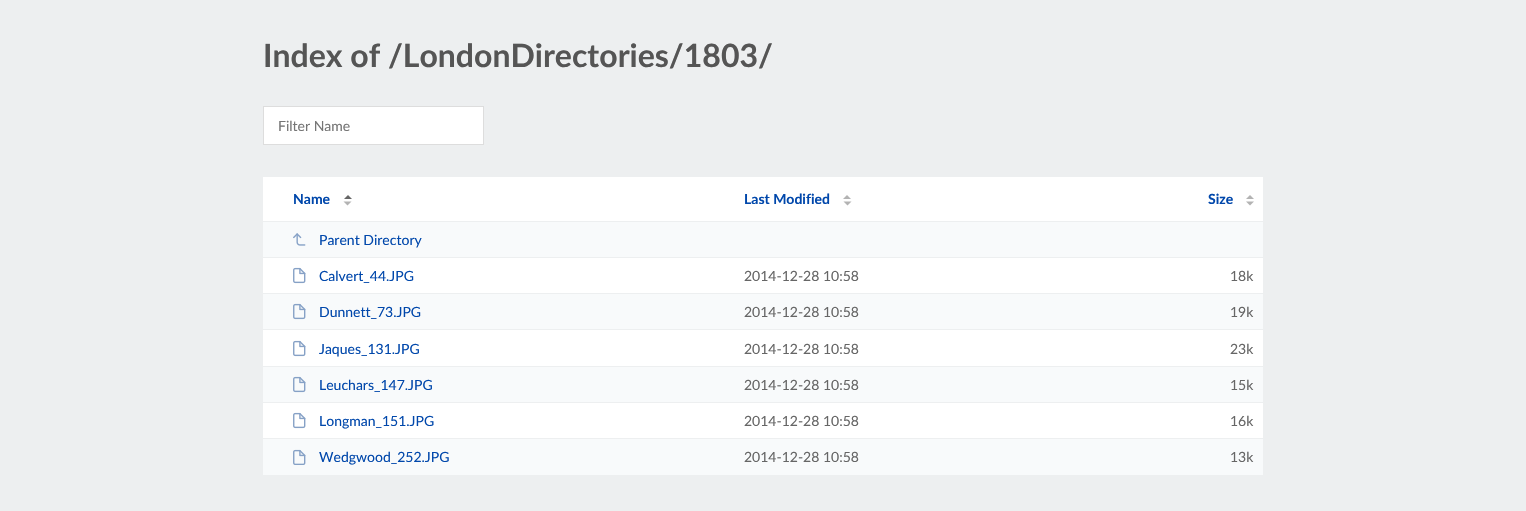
void draw(SkCanvas* canvas) {
  SkPaint paint;
  paint.setAntiAlias(true);
  auto face = [&](const char* family, int weight, float size, bool italic = false) {
    SkFontStyle style(weight, SkFontStyle::kNormal_Width,
      italic ? SkFontStyle::kItalic_Slant : SkFontStyle::kUpright_Slant);
    SkFont result(fontMgr->matchFamilyStyle(family, style), size);
    result.setSubpixel(true);
    return result;
  };
  auto paste = [&](const char* path, float x, float y, float w, float h) {
    auto image = SkImages::DeferredFromEncodedData(SkData::MakeFromFileName(path));
    canvas->drawImageRect(image, SkRect::MakeXYWH(x, y, w, h), SkSamplingOptions());
  };
  auto shape = [&](const char* data, bool evenOdd = false) {
    SkPath result = *SkParsePath::FromSVGString(data);
    if (evenOdd) result.setFillType(SkPathFillType::kEvenOdd);
    return result;
  };
  canvas->clear(0xffedeff0);
  paint.setColor(0xffffffff);
  canvas->drawRect(SkRect::MakeXYWH(263.5f, 106.5f, 220, 38), paint);
  paint.setStroke(true);
  paint.setStrokeWidth(1);
  paint.setColor(0xffdddddd);
  canvas->drawRect(SkRect::MakeXYWH(263.5f, 106.5f, 220, 38), paint);
  paint.setStroke(false);
  paint.setColor(0xffffffff);
  canvas->drawRect(SkRect::MakeXYWH(263, 177, 1000, 261), paint);
  paint.setColor(0xff666666);
  canvas->drawPath(shape("M352 199H344L348 195Z"), paint);
  paint.setColor(0xffb3b3b3);
  canvas->drawPath(shape("M343.5 201.5H351.5L347.5 205.5Z"), paint);
  canvas->drawPath(shape("M851 199H843L847 195ZM843.5 201.5H851.5L847.5 205.5Z"), paint);
  canvas->drawPath(shape("M1254 199H1246L1250 195ZM1246 201.5H1254L1250 205.5Z"), paint);
  {
    const struct { float x, y, w, h; SkColor color; } items[] = {
      {263, 222, 1000, 35, 0xfff8fafb},
      {263, 221, 1000, 1, 0xffedeff0},
      {263, 257, 1000, 1, 0xffedeff0},
    };
    for (auto [x, y, w, h, color] : items) {
      paint.setColor(color);
      canvas->drawRect(SkRect::MakeXYWH(x, y, w, h), paint);
    }
  }
  paste("img/1.png", 293, 233, 13, 13);
  paste("img/2.png", 293, 267, 13, 17);
  {
    const struct { float x, y, w, h; SkColor color; } items[] = {
      {263, 294, 1000, 35, 0xfff8fafb},
      {263, 293, 1000, 1, 0xffedeff0},
      {263, 329, 1000, 1, 0xffedeff0},
    };
    for (auto [x, y, w, h, color] : items) {
      paint.setColor(color);
      canvas->drawRect(SkRect::MakeXYWH(x, y, w, h), paint);
    }
  }
  paste("img/3.png", 293, 303, 13, 17);
  paste("img/2.png", 293, 340, 13, 17);
  {
    const struct { float x, y, w, h; SkColor color; } items[] = {
      {263, 367, 1000, 35, 0xfff8fafb},
      {263, 366, 1000, 1, 0xffedeff0},
      {263, 402, 1000, 1, 0xffedeff0},
    };
    for (auto [x, y, w, h, color] : items) {
      paint.setColor(color);
      canvas->drawRect(SkRect::MakeXYWH(x, y, w, h), paint);
    }
  }
  paste("img/3.png", 293, 376, 13, 17);
  paste("img/2.png", 293, 412, 13, 17);
  paint.setColor(0xfff8fafb);
  canvas->drawRect(SkRect::MakeXYWH(263, 439, 1000, 36), paint);
  paste("img/4.png", 293, 449, 13, 16);
  auto f0 = face("Lato", 700, 32);
  paint.setColor(0xff555555);
  canvas->drawString("Index of /LondonDirectories/1803/", 263, 67, f0, paint);
  auto f1 = face("Lato", 400, 14);
  paint.setColor(0xff757575);
  canvas->drawString("Filter Name", 278, 131, f1, paint);
  auto f2 = face("Lato", 700, 14);
  paint.setColor(0xff0047ab);
  {
    const struct { const char* s; float x, y; } items[] = {
      {"Name", 293, 204},
      {"Last Modified", 744, 204},
      {"Size", 1208, 204},
    };
    for (auto [s, x, y] : items) {
      canvas->drawString(s, x, y, f2, paint);
    }
  }
  canvas->drawString("Parent Directory", 319, 245, f1, paint);
  canvas->drawString("Calvert_44.JPG", 319, 281, f1, paint);
  paint.setColor(0xff666666);
  canvas->drawString("2014-12-28 10:58", 744, 281, f1, paint);
  canvas->drawString("18k", 1230, 281, f1, paint);
  paint.setColor(0xff0047ab);
  canvas->drawString("Dunnett_73.JPG", 319, 317, f1, paint);
  paint.setColor(0xff666666);
  canvas->drawString("2014-12-28 10:58", 744, 317, f1, paint);
  canvas->drawString("19k", 1230, 317, f1, paint);
  paint.setColor(0xff0047ab);
  canvas->drawString("Jaques_131.JPG", 319, 354, f1, paint);
  paint.setColor(0xff666666);
  canvas->drawString("2014-12-28 10:58", 744, 354, f1, paint);
  canvas->drawString("23k", 1230, 354, f1, paint);
  paint.setColor(0xff0047ab);
  canvas->drawString("Leuchars_147.JPG", 319, 390, f1, paint);
  paint.setColor(0xff666666);
  canvas->drawString("2014-12-28 10:58", 744, 390, f1, paint);
  canvas->drawString("15k", 1230, 390, f1, paint);
  paint.setColor(0xff0047ab);
  canvas->drawString("Longman_151.JPG", 319, 426, f1, paint);
  paint.setColor(0xff666666);
  canvas->drawString("2014-12-28 10:58", 744, 426, f1, paint);
  canvas->drawString("16k", 1230, 426, f1, paint);
  paint.setColor(0xff0047ab);
  canvas->drawString("Wedgwood_252.JPG", 319, 462, f1, paint);
  paint.setColor(0xff666666);
  canvas->drawString("2014-12-28 10:58", 744, 462, f1, paint);
  canvas->drawString("13k", 1230, 462, f1, paint);
}
